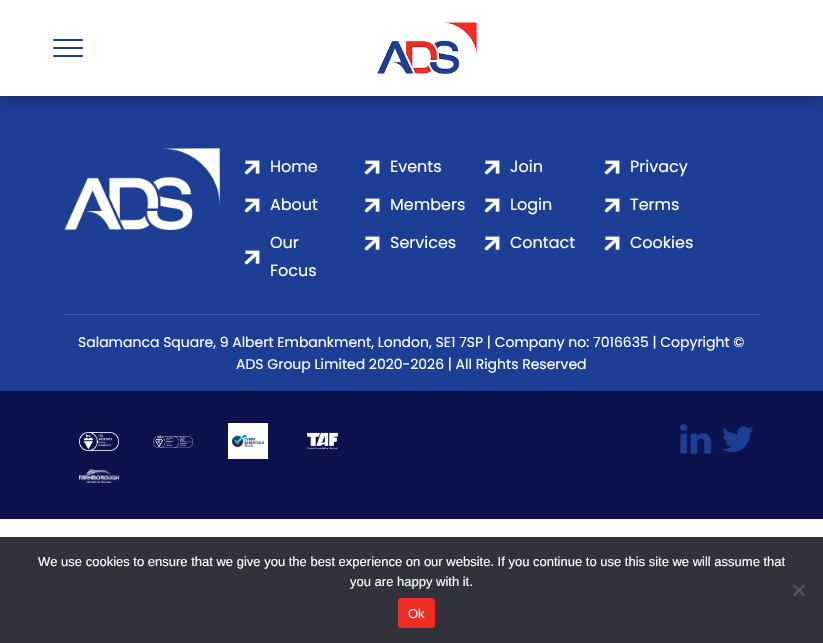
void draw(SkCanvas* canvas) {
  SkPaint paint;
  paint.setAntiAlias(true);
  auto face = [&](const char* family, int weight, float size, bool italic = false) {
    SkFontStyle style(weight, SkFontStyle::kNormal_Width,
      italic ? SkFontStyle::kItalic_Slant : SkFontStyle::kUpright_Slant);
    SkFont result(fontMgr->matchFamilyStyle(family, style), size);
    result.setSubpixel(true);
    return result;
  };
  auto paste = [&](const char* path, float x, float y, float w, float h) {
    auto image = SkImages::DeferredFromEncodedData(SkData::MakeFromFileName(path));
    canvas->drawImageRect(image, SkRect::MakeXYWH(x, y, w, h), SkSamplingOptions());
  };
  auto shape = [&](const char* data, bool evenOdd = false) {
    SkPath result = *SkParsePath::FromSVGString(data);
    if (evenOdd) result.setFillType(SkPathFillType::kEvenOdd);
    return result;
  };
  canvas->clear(0xffffffff);
  paint.setColor(0xff1c3e95);
  canvas->drawRect(SkRect::MakeXYWH(0, 96, 823, 295), paint);
  paint.setColor(0xff1a184e);
  paint.setMaskFilter(SkMaskFilter::MakeBlur(kNormal_SkBlurStyle, 7.5f));
  canvas->drawRect(SkRect::MakeXYWH(0, 0, 823, 96), paint);
  paint.setMaskFilter(nullptr);
  paint.setColor(0xffffffff);
  canvas->drawRect(SkRect::MakeXYWH(0, 0, 823, 96), paint);
  paint.setColor(0xff1c3e95);
  canvas->drawRoundRect(SkRect::MakeXYWH(53, 39, 30, 2), 1, 1, paint);
  canvas->drawRoundRect(SkRect::MakeXYWH(53, 47, 30, 2), 1, 1, paint);
  canvas->drawRoundRect(SkRect::MakeXYWH(53, 55, 30, 2), 1, 1, paint);
  paste("img/1.png", 377, 22, 100, 52);
  paste("img/2.png", 64, 148, 156, 82);
  paste("img/3.png", 244, 160, 16, 15);
  paste("img/3.png", 244, 198, 16, 15);
  paste("img/3.png", 244, 250, 16, 15);
  paste("img/3.png", 364, 160, 16, 15);
  paste("img/3.png", 364, 198, 16, 15);
  paste("img/3.png", 364, 236, 16, 15);
  paste("img/3.png", 484, 160, 16, 15);
  paste("img/3.png", 484, 198, 16, 15);
  paste("img/3.png", 484, 236, 16, 15);
  paste("img/3.png", 604, 160, 16, 15);
  paste("img/3.png", 604, 198, 16, 15);
  paste("img/3.png", 604, 236, 16, 15);
  paint.setColor(0xff4160af);
  canvas->drawRect(SkRect::MakeXYWH(64, 314, 696, 1), paint);
  paint.setColor(0xff0b124e);
  canvas->drawRect(SkRect::MakeXYWH(0, 391, 823, 128), paint);
  paste("img/4.png", 79, 432, 40, 19);
  paste("img/5.png", 153, 435, 40, 13);
  paint.setColor(0xffffffff);
  canvas->drawRect(SkRect::MakeXYWH(228, 423, 40, 36), paint);
  paste("img/6.png", 232, 435, 32, 12);
  paste("img/7.png", 307, 432, 31, 18);
  paste("img/8.png", 79, 469, 40, 14);
  paste("img/9.png", 680, 424, 31, 30);
  paste("img/10.png", 722, 426, 32, 26);
  paint.setColor(0xff32323a);
  canvas->drawRect(SkRect::MakeXYWH(0, 537, 823, 106), paint);
  paint.setColor(0xff59595d);
  canvas->drawPath(shape("M803.5 584.5L805 586L794.5 596.5L793 595Z"), paint);
  canvas->drawPath(shape("M793 586L794.5 584.5L805 595L803.5 596.5Z"), paint);
  paint.setColor(0xffee2d24);
  canvas->drawRoundRect(SkRect::MakeXYWH(398, 598, 37, 30), 3, 3, paint);
  auto f0 = face("Poppins", 400, 16);
  paint.setColor(0xffffffff);
  {
    const struct { const char* s; float x, y; } items[] = {
      {"Home", 270, 172},
      {"About", 270, 210},
      {"Our", 270, 248},
      {"Focus", 270, 276},
      {"Events", 390, 172},
      {"Members", 390, 210},
      {"Services", 390, 248},
      {"Join", 510, 172},
      {"Login", 510, 210},
      {"Contact", 510, 248},
      {"Privacy", 630, 172},
      {"Terms", 630, 210},
      {"Cookies", 630, 248},
    };
    for (auto [s, x, y] : items) {
      canvas->drawString(s, x, y, f0, paint);
    }
  }
  auto f1 = face("Poppins", 400, 14);
  canvas->drawString("Salamanca Square, 9 Albert Embankment, London, SE1 7SP | Company no: 7016635 | Copyright ©", 78, 347, f1, paint);
  canvas->drawString("ADS Group Limited 2020-2026 | All Rights Reserved", 236, 369, f1, paint);
  auto f2 = face("Liberation Sans", 400, 13);
  {
    const struct { const char* s; float x, y; } items[] = {
      {"We use cookies to ensure that we give you the best experience on our website. If you continue to use this site we will assume that", 38, 566},
      {"you are happy with it.", 350, 586},
      {"Ok", 408, 618},
    };
    for (auto [s, x, y] : items) {
      canvas->drawString(s, x, y, f2, paint);
    }
  }
}
